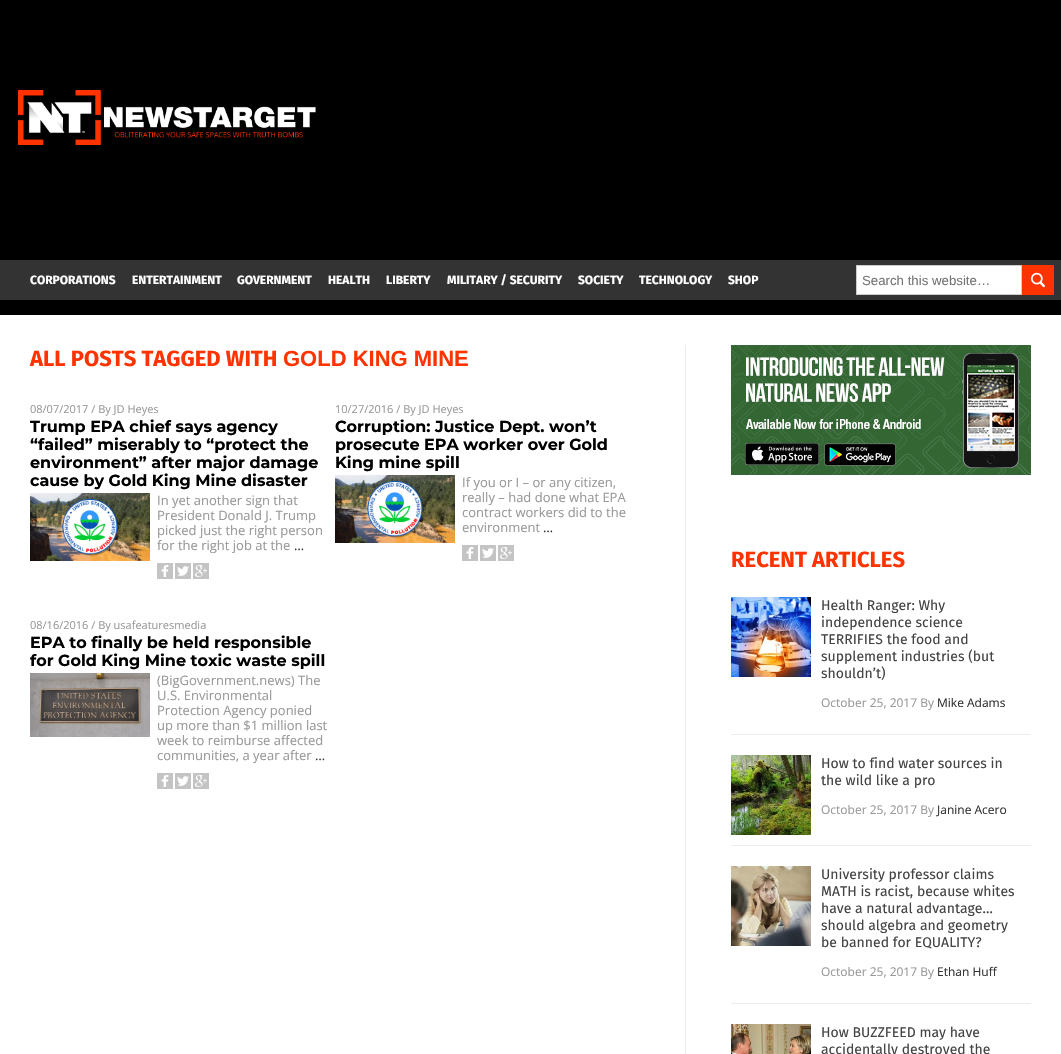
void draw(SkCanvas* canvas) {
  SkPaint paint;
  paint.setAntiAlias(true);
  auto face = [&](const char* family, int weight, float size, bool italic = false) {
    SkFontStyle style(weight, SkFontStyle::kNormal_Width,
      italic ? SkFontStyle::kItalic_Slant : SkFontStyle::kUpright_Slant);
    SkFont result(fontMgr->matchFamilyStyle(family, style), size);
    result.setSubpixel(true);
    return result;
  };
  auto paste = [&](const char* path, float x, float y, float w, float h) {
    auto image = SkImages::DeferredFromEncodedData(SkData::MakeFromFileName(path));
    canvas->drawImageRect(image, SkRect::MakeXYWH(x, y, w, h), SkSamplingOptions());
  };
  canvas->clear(0xff000000);
  paste("img/1.png", 18, 90, 298, 55);
  paint.setColor(0xff333333);
  canvas->drawRect(SkRect::MakeXYWH(0, 260, 1061, 40), paint);
  paint.setColor(0xffffffff);
  canvas->drawRect(SkRect::MakeXYWH(856.5f, 265.5f, 165, 29), paint);
  paint.setStroke(true);
  paint.setStrokeWidth(1);
  paint.setColor(0xffcccccc);
  canvas->drawRect(SkRect::MakeXYWH(856.5f, 265.5f, 165, 29), paint);
  paint.setStroke(false);
  paint.setColor(0xffff3300);
  canvas->drawRect(SkRect::MakeXYWH(1022, 265, 32, 30), paint);
  paste("img/2.png", 1031, 272, 14, 16);
  paint.setColor(0xffffffff);
  canvas->drawRect(SkRect::MakeXYWH(0, 315, 1061, 739), paint);
  paint.setColor(0xffececec);
  canvas->drawRect(SkRect::MakeXYWH(685, 345, 1, 709), paint);
  paste("img/3.png", 30, 493, 120, 68);
  paint.setColor(0xffc4c4c4);
  canvas->drawRect(SkRect::MakeXYWH(157, 563, 16, 16), paint);
  paste("img/4.png", 161, 565, 8, 12);
  canvas->drawRect(SkRect::MakeXYWH(175, 563, 16, 16), paint);
  paste("img/5.png", 177, 566, 12, 10);
  canvas->drawRect(SkRect::MakeXYWH(193, 563, 16, 16), paint);
  paste("img/6.png", 195, 565, 12, 12);
  paste("img/7.png", 335, 475, 120, 68);
  canvas->drawRect(SkRect::MakeXYWH(462, 545, 16, 16), paint);
  paste("img/4.png", 466, 547, 8, 12);
  canvas->drawRect(SkRect::MakeXYWH(480, 545, 16, 16), paint);
  paste("img/5.png", 482, 548, 12, 10);
  canvas->drawRect(SkRect::MakeXYWH(498, 545, 16, 16), paint);
  paste("img/6.png", 500, 547, 12, 12);
  paste("img/8.png", 30, 673, 120, 64);
  canvas->drawRect(SkRect::MakeXYWH(157, 773, 16, 16), paint);
  paste("img/4.png", 161, 775, 8, 12);
  canvas->drawRect(SkRect::MakeXYWH(175, 773, 16, 16), paint);
  paste("img/5.png", 177, 776, 12, 10);
  canvas->drawRect(SkRect::MakeXYWH(193, 773, 16, 16), paint);
  paste("img/6.png", 195, 775, 12, 12);
  paste("img/9.png", 731, 345, 300, 130);
  paint.setColor(0xffececec);
  canvas->drawRect(SkRect::MakeXYWH(731, 734, 300, 1), paint);
  paste("img/10.png", 731, 597, 80, 80);
  canvas->drawRect(SkRect::MakeXYWH(731, 845, 300, 1), paint);
  paste("img/11.png", 731, 755, 80, 80);
  canvas->drawRect(SkRect::MakeXYWH(731, 1003, 300, 1), paint);
  paste("img/12.png", 731, 866, 80, 80);
  paste("img/13.png", 731, 1024, 80, 30);
  auto f0 = face("Fira Sans", 700, 12);
  paint.setColor(0xffffffff);
  {
    const struct { const char* s; float x, y; } items[] = {
      {"CORPORATIONS", 30, 284},
      {"ENTERTAINMENT", 132, 284},
      {"GOVERNMENT", 237, 284},
      {"HEALTH", 328, 284},
      {"LIBERTY", 386, 284},
      {"MILITARY / SECURITY", 447, 284},
      {"SOCIETY", 578, 284},
      {"TECHNOLOGY", 639, 284},
      {"SHOP", 728, 284},
    };
    for (auto [s, x, y] : items) {
      canvas->drawString(s, x, y, f0, paint);
    }
  }
  auto f1 = face("Liberation Sans", 400, 13.25f);
  paint.setColor(0xff757575);
  canvas->drawString("Search this website…", 862, 285, f1, paint);
  auto f2 = face("Fira Sans", 700, 22);
  paint.setColor(0xffff3300);
  canvas->drawString("ALL POSTS TAGGED WITH", 30, 366, f2, paint);
  auto f3 = face("Liberation Sans", 700, 22);
  canvas->drawString("GOLD KING MINE", 283, 366, f3, paint);
  auto f4 = face("Open Sans", 400, 11);
  paint.setColor(0xff999999);
  canvas->drawString("08/07/2017 / By JD Heyes", 30, 413, f4, paint);
  auto f5 = face("Montserrat", 700, 16);
  paint.setColor(0xff000000);
  {
    const struct { const char* s; float x, y; } items[] = {
      {"Trump EPA chief says agency", 30, 432},
      {"“failed” miserably to “protect the", 30, 450},
      {"environment” after major damage", 30, 468},
      {"cause by Gold King Mine disaster", 30, 486},
    };
    for (auto [s, x, y] : items) {
      canvas->drawString(s, x, y, f5, paint);
    }
  }
  auto f6 = face("Open Sans", 400, 13);
  paint.setColor(0xff999999);
  {
    const struct { const char* s; float x, y; } items[] = {
      {"In yet another sign that", 157, 505},
      {"President Donald J. Trump", 157, 520},
      {"picked just the right person", 157, 535},
      {"for the right job at the", 157, 550},
    };
    for (auto [s, x, y] : items) {
      canvas->drawString(s, x, y, f6, paint);
    }
  }
  paint.setColor(0xff333333);
  canvas->drawString("…", 294, 550, f6, paint);
  paint.setColor(0xff999999);
  canvas->drawString("10/27/2016 / By JD Heyes", 335, 413, f4, paint);
  paint.setColor(0xff000000);
  {
    const struct { const char* s; float x, y; } items[] = {
      {"Corruption: Justice Dept. won’t", 335, 432},
      {"prosecute EPA worker over Gold", 335, 450},
      {"King mine spill", 335, 468},
    };
    for (auto [s, x, y] : items) {
      canvas->drawString(s, x, y, f5, paint);
    }
  }
  paint.setColor(0xff999999);
  {
    const struct { const char* s; float x, y; } items[] = {
      {"If you or I – or any citizen,", 462, 487},
      {"really – had done what EPA", 462, 502},
      {"contract workers did to the", 462, 517},
      {"environment", 462, 532},
    };
    for (auto [s, x, y] : items) {
      canvas->drawString(s, x, y, f6, paint);
    }
  }
  paint.setColor(0xff333333);
  canvas->drawString("…", 543, 532, f6, paint);
  paint.setColor(0xff999999);
  canvas->drawString("08/16/2016 / By usafeaturesmedia", 30, 629, f4, paint);
  paint.setColor(0xff000000);
  canvas->drawString("EPA to finally be held responsible", 30, 648, f5, paint);
  canvas->drawString("for Gold King Mine toxic waste spill", 30, 666, f5, paint);
  paint.setColor(0xff999999);
  {
    const struct { const char* s; float x, y; } items[] = {
      {"(BigGovernment.news) The", 157, 685},
      {"U.S. Environmental", 157, 700},
      {"Protection Agency ponied", 157, 715},
      {"up more than $1 million last", 157, 730},
      {"week to reimburse affected", 157, 745},
      {"communities, a year after", 157, 760},
    };
    for (auto [s, x, y] : items) {
      canvas->drawString(s, x, y, f6, paint);
    }
  }
  paint.setColor(0xff333333);
  canvas->drawString("…", 315, 760, f6, paint);
  paint.setColor(0xffff3300);
  canvas->drawString("RECENT ARTICLES", 731, 567, f2, paint);
  auto f7 = face("Fira Sans", 400, 14);
  paint.setColor(0xff444444);
  {
    const struct { const char* s; float x, y; } items[] = {
      {"Health Ranger: Why", 821, 610},
      {"independence science", 821, 627},
      {"TERRIFIES the food and", 821, 644},
      {"supplement industries (but", 821, 661},
      {"shouldn’t)", 821, 678},
    };
    for (auto [s, x, y] : items) {
      canvas->drawString(s, x, y, f7, paint);
    }
  }
  auto f8 = face("Open Sans", 400, 12);
  paint.setColor(0xff999999);
  canvas->drawString("October 25, 2017 By", 821, 707, f8, paint);
  paint.setColor(0xff333333);
  canvas->drawString("Mike Adams", 937, 707, f8, paint);
  paint.setColor(0xff444444);
  canvas->drawString("How to find water sources in", 821, 768, f7, paint);
  canvas->drawString("the wild like a pro", 821, 785, f7, paint);
  paint.setColor(0xff999999);
  canvas->drawString("October 25, 2017 By", 821, 814, f8, paint);
  paint.setColor(0xff333333);
  canvas->drawString("Janine Acero", 937, 814, f8, paint);
  paint.setColor(0xff444444);
  {
    const struct { const char* s; float x, y; } items[] = {
      {"University professor claims", 821, 879},
      {"MATH is racist, because whites", 821, 896},
      {"have a natural advantage…", 821, 913},
      {"should algebra and geometry", 821, 930},
      {"be banned for EQUALITY?", 821, 947},
    };
    for (auto [s, x, y] : items) {
      canvas->drawString(s, x, y, f7, paint);
    }
  }
  paint.setColor(0xff999999);
  canvas->drawString("October 25, 2017 By", 821, 976, f8, paint);
  paint.setColor(0xff333333);
  canvas->drawString("Ethan Huff", 937, 976, f8, paint);
  paint.setColor(0xff444444);
  canvas->drawString("How BUZZFEED may have", 821, 1037, f7, paint);
  canvas->drawString("accidentally destroyed the", 821, 1054, f7, paint);
}
